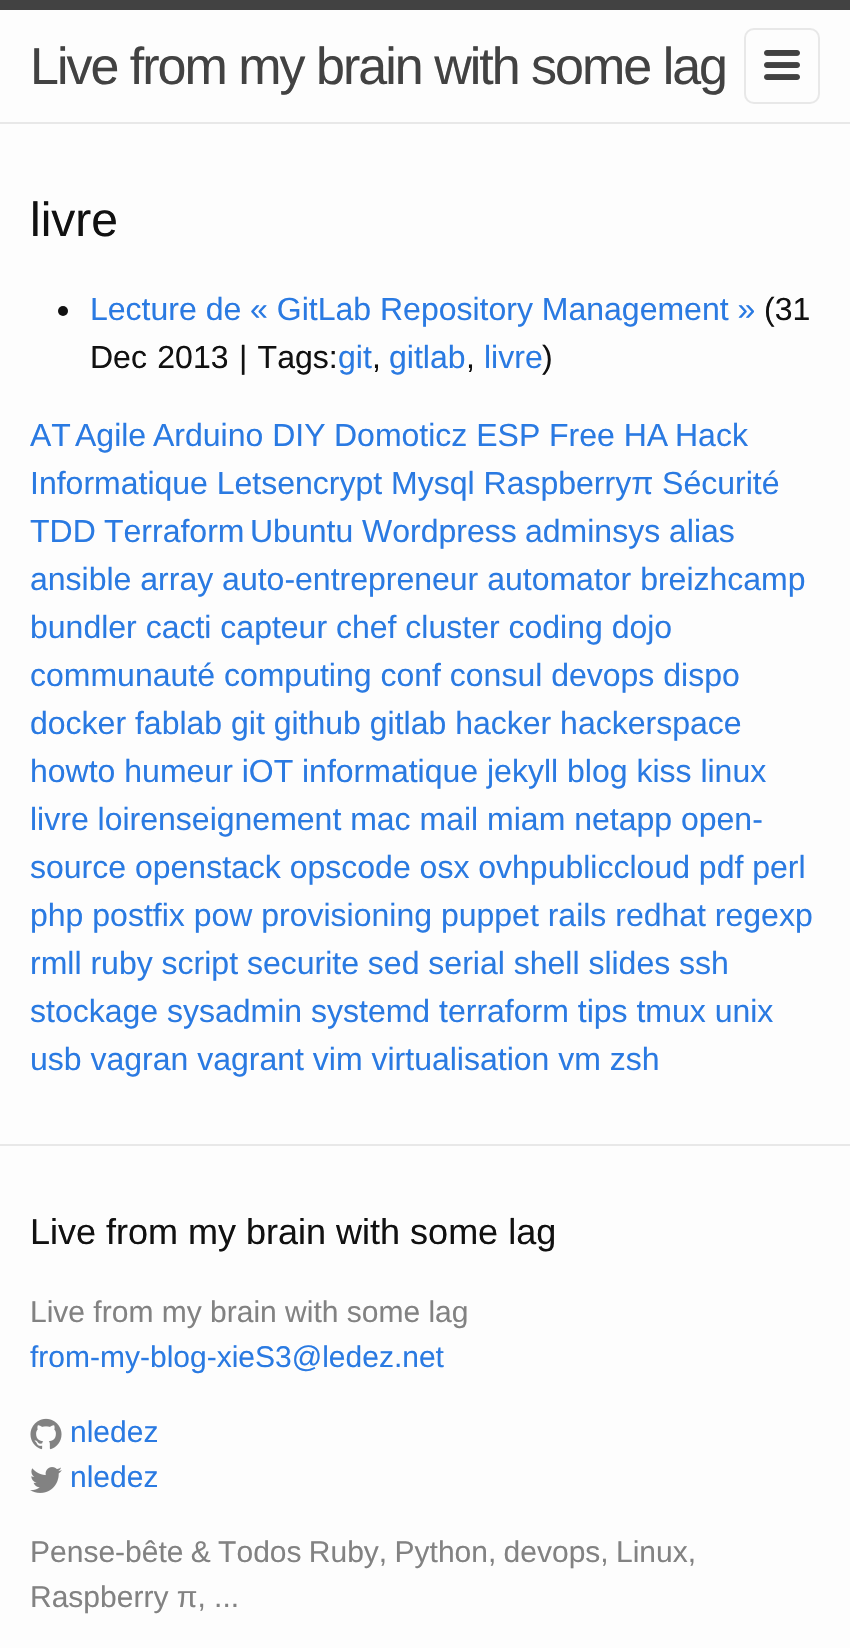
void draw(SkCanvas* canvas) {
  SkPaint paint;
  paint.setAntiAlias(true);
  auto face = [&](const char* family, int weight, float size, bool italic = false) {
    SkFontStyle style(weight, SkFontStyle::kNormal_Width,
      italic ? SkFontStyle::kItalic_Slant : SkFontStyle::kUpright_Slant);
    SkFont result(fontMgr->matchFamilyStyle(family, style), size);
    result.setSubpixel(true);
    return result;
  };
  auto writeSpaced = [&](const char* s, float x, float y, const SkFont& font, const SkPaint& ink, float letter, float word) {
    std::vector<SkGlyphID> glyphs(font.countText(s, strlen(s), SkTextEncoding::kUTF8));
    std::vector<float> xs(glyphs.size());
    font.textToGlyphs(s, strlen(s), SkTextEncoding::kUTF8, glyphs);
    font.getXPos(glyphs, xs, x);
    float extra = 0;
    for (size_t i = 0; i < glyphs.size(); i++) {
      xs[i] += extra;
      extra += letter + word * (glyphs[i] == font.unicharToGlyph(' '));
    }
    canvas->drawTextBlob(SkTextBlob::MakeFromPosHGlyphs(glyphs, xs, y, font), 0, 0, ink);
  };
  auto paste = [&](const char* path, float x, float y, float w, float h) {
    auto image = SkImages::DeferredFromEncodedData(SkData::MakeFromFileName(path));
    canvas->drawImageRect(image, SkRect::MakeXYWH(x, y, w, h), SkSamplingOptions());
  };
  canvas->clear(0xfffdfdfd);
  paint.setColor(0xff424242);
  canvas->drawRect(SkRect::MakeXYWH(0, 0, 850, 10), paint);
  paint.setColor(0xffe8e8e8);
  canvas->drawRect(SkRect::MakeXYWH(0, 122, 850, 2), paint);
  paint.setStroke(true);
  paint.setStrokeWidth(2);
  canvas->drawRoundRect(SkRect::MakeXYWH(745, 29, 74, 74), 9, 9, paint);
  paste("img/1.png", 764, 50, 36, 30);
  paint.setStroke(false);
  paint.setColor(0xff111111);
  canvas->drawCircle(63, 311, 5, paint);
  paint.setColor(0xffe8e8e8);
  canvas->drawRect(SkRect::MakeXYWH(0, 1144, 850, 2), paint);
  paste("img/2.png", 30, 1418, 32, 32);
  paste("img/3.png", 30, 1467, 32, 26);
  auto f0 = face("Liberation Sans", 400, 52);
  paint.setColor(0xff424242);
  writeSpaced("Live from my brain with some lag", 30, 84, f0, paint, -2, 0);
  auto f1 = face("Liberation Sans", 400, 48);
  paint.setColor(0xff111111);
  canvas->drawString("livre", 30, 236, f1, paint);
  auto f2 = face("Liberation Sans", 400, 32);
  paint.setColor(0xff2a7ae2);
  canvas->drawString("Lecture de « GitLab Repository Management »", 90, 320, f2, paint);
  paint.setColor(0xff111111);
  canvas->drawString("(31", 764, 320, f2, paint);
  writeSpaced("Dec 2013 | Tags:", 90, 368, f2, paint, 0, 1.5f);
  paint.setColor(0xff2a7ae2);
  canvas->drawString("git", 338, 368, f2, paint);
  paint.setColor(0xff111111);
  canvas->drawString(",", 372, 368, f2, paint);
  paint.setColor(0xff2a7ae2);
  canvas->drawString("gitlab", 389, 368, f2, paint);
  paint.setColor(0xff111111);
  canvas->drawString(",", 466, 368, f2, paint);
  paint.setColor(0xff2a7ae2);
  canvas->drawString("livre", 484, 368, f2, paint);
  paint.setColor(0xff111111);
  canvas->drawString(")", 542, 368, f2, paint);
  paint.setColor(0xff2a7ae2);
  {
    const struct { const char* s; float x, y; } items[] = {
      {"AT", 30, 446},
      {"Agile", 75, 446},
      {"Arduino DIY", 153, 446},
      {"Domoticz ESP", 334, 446},
      {"Free HA", 549, 446},
      {"Hack", 675, 446},
      {"Informatique Letsencrypt Mysql Raspberryπ Sécurité", 30, 494},
      {"TDD", 30, 542},
      {"Terraform", 104, 542},
      {"Ubuntu Wordpress", 250, 542},
      {"adminsys alias", 525, 542},
      {"ansible array auto-entrepreneur automator breizhcamp", 30, 590},
      {"bundler cacti capteur chef cluster coding dojo", 30, 638},
      {"communauté computing conf consul devops dispo", 30, 686},
      {"docker fablab git github gitlab hacker hackerspace", 30, 734},
      {"howto humeur iOT", 30, 782},
      {"informatique jekyll blog kiss linux", 302, 782},
      {"livre loirenseignement mac mail miam netapp open-", 30, 830},
      {"source openstack opscode osx ovhpubliccloud pdf perl", 30, 878},
      {"php postfix pow provisioning puppet rails redhat regexp", 30, 926},
      {"rmll ruby script securite sed serial shell slides ssh", 30, 974},
      {"stockage sysadmin systemd terraform tips tmux unix", 30, 1022},
      {"usb vagran vagrant vim virtualisation vm zsh", 30, 1070},
    };
    for (auto [s, x, y] : items) {
      canvas->drawString(s, x, y, f2, paint);
    }
  }
  auto f3 = face("Liberation Sans", 400, 36);
  paint.setColor(0xff111111);
  canvas->drawString("Live from my brain with some lag", 30, 1244, f3, paint);
  auto f4 = face("Liberation Sans", 400, 30);
  paint.setColor(0xff828282);
  canvas->drawString("Live from my brain with some lag", 30, 1322, f4, paint);
  paint.setColor(0xff2a7ae2);
  {
    const struct { const char* s; float x, y; } items[] = {
      {"from-my-blog-xieS3@ledez.net", 30, 1367},
      {"nledez", 70, 1442},
      {"nledez", 70, 1487},
    };
    for (auto [s, x, y] : items) {
      canvas->drawString(s, x, y, f4, paint);
    }
  }
  paint.setColor(0xff828282);
  writeSpaced("Pense-bête & Todos Ruby, Python, devops, Linux,", 30, 1562, f4, paint, 0, -1);
  canvas->drawString("Raspberry π, ...", 30, 1607, f4, paint);
}
